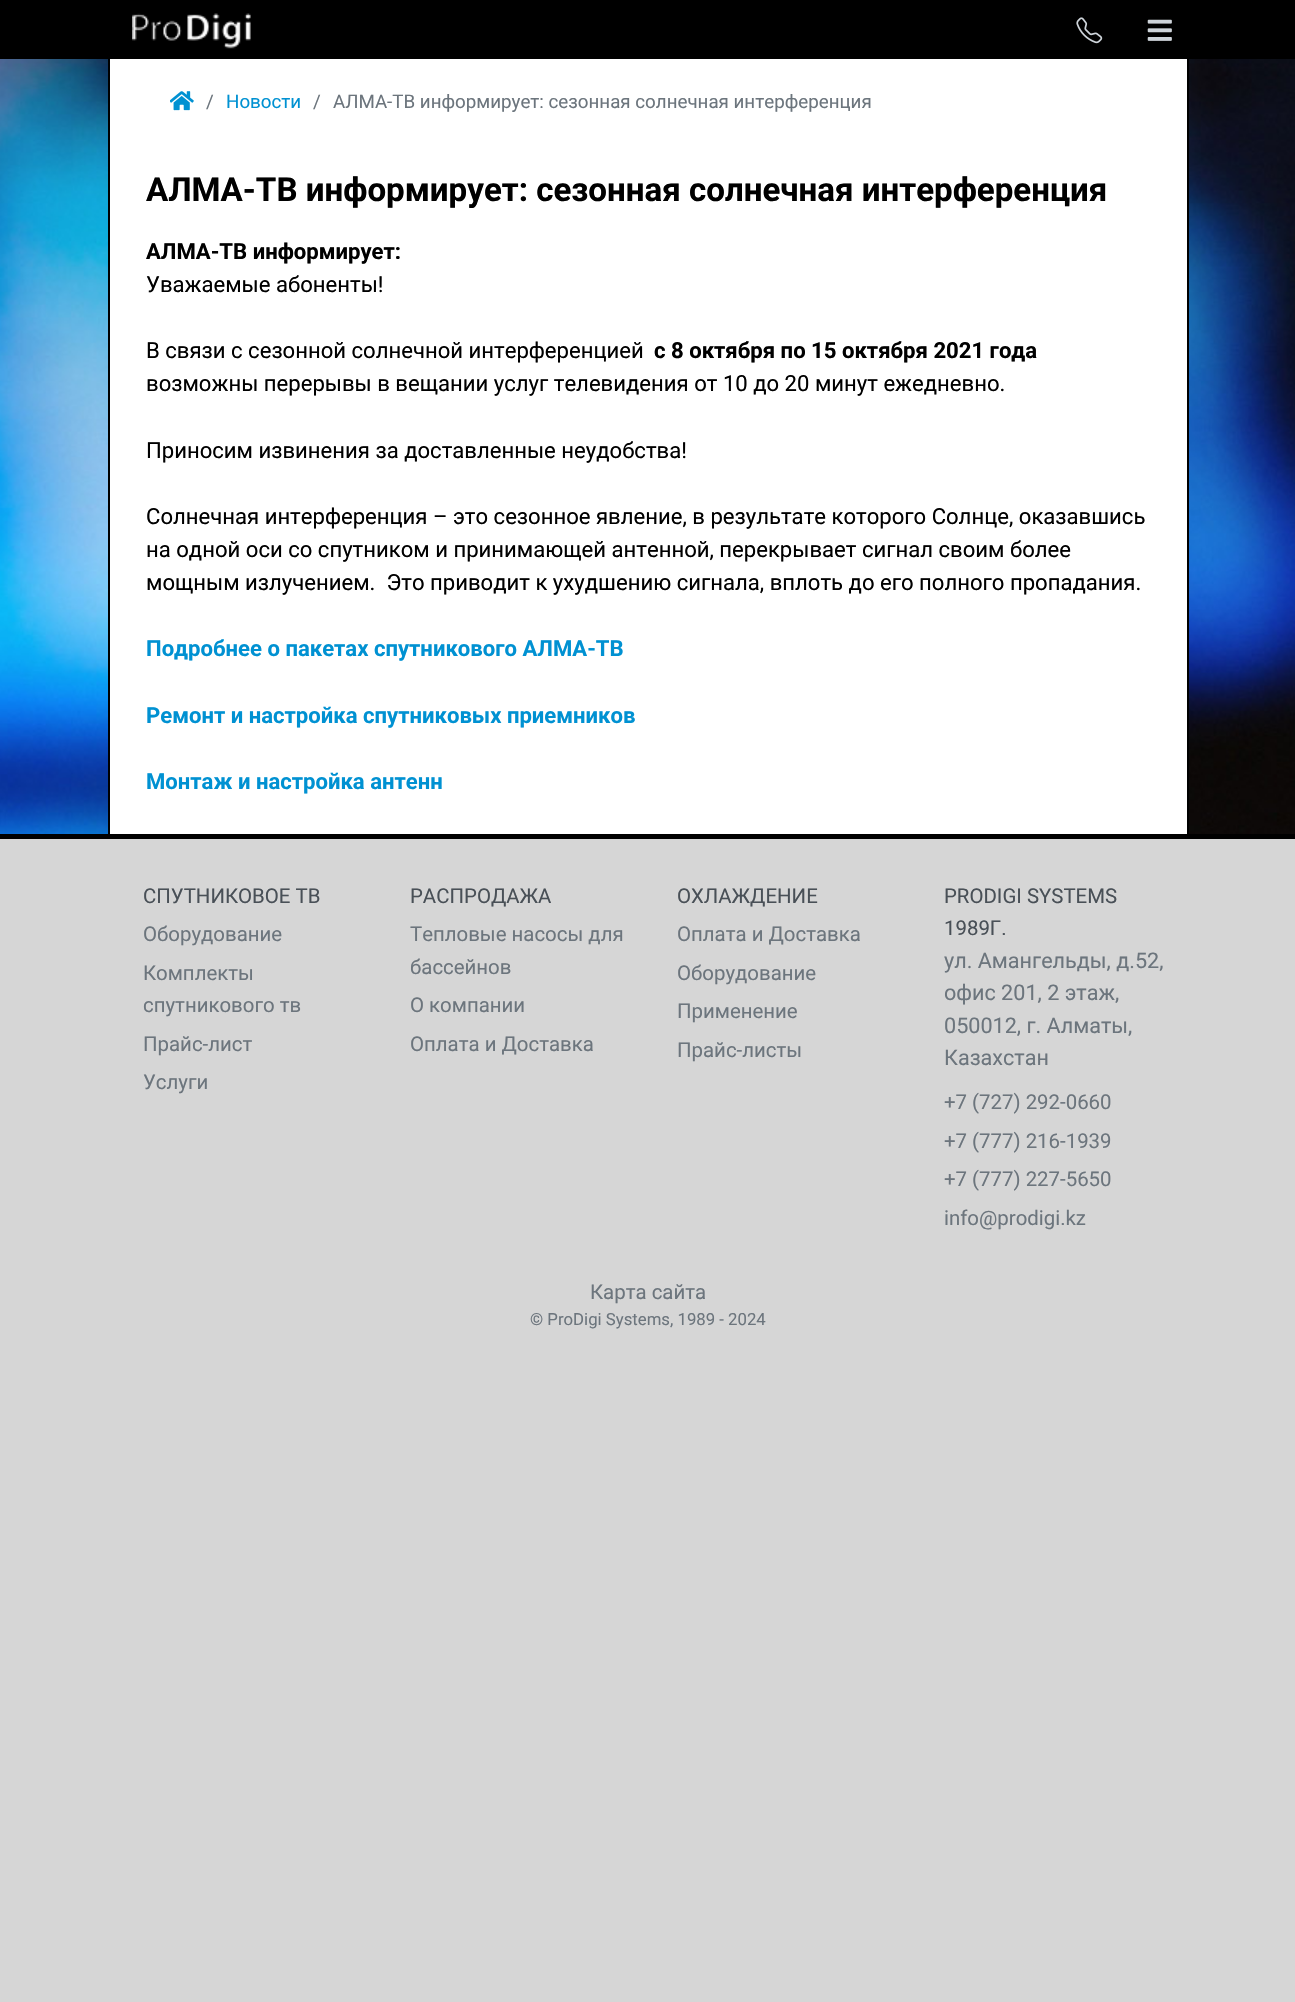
void draw(SkCanvas* canvas) {
  SkPaint paint;
  paint.setAntiAlias(true);
  auto face = [&](const char* family, int weight, float size, bool italic = false) {
    SkFontStyle style(weight, SkFontStyle::kNormal_Width,
      italic ? SkFontStyle::kItalic_Slant : SkFontStyle::kUpright_Slant);
    SkFont result(fontMgr->matchFamilyStyle(family, style), size);
    result.setSubpixel(true);
    return result;
  };
  auto paste = [&](const char* path, float x, float y, float w, float h) {
    auto image = SkImages::DeferredFromEncodedData(SkData::MakeFromFileName(path));
    canvas->drawImageRect(image, SkRect::MakeXYWH(x, y, w, h), SkSamplingOptions());
  };
  canvas->clear(0xffffffff);
  paste("img/1.png", 0, 59, 1295, 775);
  paint.setColor(0xff000000);
  canvas->drawRect(SkRect::MakeXYWH(0, 0, 1295, 59), paint);
  paste("img/2.png", 132, 13, 119, 36);
  paste("img/3.png", 1076, 17, 27, 27);
  paste("img/4.png", 1147, 19, 25, 22);
  {
    const struct { float x, y, w, h; SkColor color; } items[] = {
      {110, 59, 1077, 775, 0xffffffff},
      {1187, 59, 2, 775, 0xff000000},
      {108, 59, 2, 775, 0xff000000},
    };
    for (auto [x, y, w, h, color] : items) {
      paint.setColor(color);
      canvas->drawRect(SkRect::MakeXYWH(x, y, w, h), paint);
    }
  }
  paste("img/5.png", 170, 91, 24, 20);
  paint.setColor(0xffd6d6d6);
  canvas->drawRect(SkRect::MakeXYWH(0, 839, 1295, 1163), paint);
  paint.setColor(0xff000000);
  canvas->drawRect(SkRect::MakeXYWH(0, 834, 1295, 5), paint);
  auto f0 = face("Roboto", 400, 18.75f);
  paint.setColor(0xff6c757d);
  canvas->drawString("/", 206, 108, f0, paint);
  paint.setColor(0xff0091d2);
  canvas->drawString("Новости", 226, 108, f0, paint);
  paint.setColor(0xff6c757d);
  canvas->drawString("/", 313, 108, f0, paint);
  canvas->drawString("АЛМА-ТВ информирует: сезонная солнечная интерференция", 333, 108, f0, paint);
  auto f1 = face("Roboto", 700, 33.1f);
  paint.setColor(0xff000000);
  canvas->drawString("АЛМА-ТВ информирует: сезонная солнечная интерференция", 146, 201, f1, paint);
  auto f2 = face("Roboto", 700, 22.1f);
  canvas->drawString("АЛМА-ТВ информирует:", 146, 259, f2, paint);
  auto f3 = face("Roboto", 400, 22.1f);
  canvas->drawString("Уважаемые абоненты!", 146, 292, f3, paint);
  canvas->drawString("В связи с сезонной солнечной интерференцией", 146, 358, f3, paint);
  canvas->drawString("с 8 октября по 15 октября 2021 года", 654, 358, f2, paint);
  {
    const struct { const char* s; float x, y; } items[] = {
      {"возможны перерывы в вещании услуг телевидения от 10 до 20 минут ежедневно.", 146, 391},
      {"Приносим извинения за доставленные неудобства!", 146, 458},
      {"Солнечная интерференция – это сезонное явление, в результате которого Солнце, оказавшись", 146, 524},
      {"на одной оси со спутником и принимающей антенной, перекрывает сигнал своим более", 146, 557},
      {"мощным излучением.  Это приводит к ухудшению сигнала, вплоть до его полного пропадания.", 146, 590},
    };
    for (auto [s, x, y] : items) {
      canvas->drawString(s, x, y, f3, paint);
    }
  }
  paint.setColor(0xff0091d2);
  {
    const struct { const char* s; float x, y; } items[] = {
      {"Подробнее о пакетах спутникового АЛМА-ТВ", 146, 656},
      {"Ремонт и настройка спутниковых приемников", 146, 723},
      {"Монтаж и настройка антенн", 146, 789},
    };
    for (auto [s, x, y] : items) {
      canvas->drawString(s, x, y, f2, paint);
    }
  }
  auto f4 = face("Roboto", 400, 20.4f);
  paint.setColor(0xff495057);
  canvas->drawString("СПУТНИКОВОЕ ТВ", 143, 903, f4, paint);
  paint.setColor(0xff6c757d);
  {
    const struct { const char* s; float x, y; } items[] = {
      {"Оборудование", 143, 941},
      {"Комплекты", 143, 980},
      {"спутникового тв", 143, 1012},
      {"Прайс-лист", 143, 1051},
      {"Услуги", 143, 1089},
    };
    for (auto [s, x, y] : items) {
      canvas->drawString(s, x, y, f4, paint);
    }
  }
  paint.setColor(0xff495057);
  canvas->drawString("РАСПРОДАЖА", 410, 903, f4, paint);
  paint.setColor(0xff6c757d);
  {
    const struct { const char* s; float x, y; } items[] = {
      {"Тепловые насосы для", 410, 941},
      {"бассейнов", 410, 974},
      {"О компании", 410, 1012},
      {"Оплата и Доставка", 410, 1051},
    };
    for (auto [s, x, y] : items) {
      canvas->drawString(s, x, y, f4, paint);
    }
  }
  paint.setColor(0xff495057);
  canvas->drawString("ОХЛАЖДЕНИЕ", 677, 903, f4, paint);
  paint.setColor(0xff6c757d);
  {
    const struct { const char* s; float x, y; } items[] = {
      {"Оплата и Доставка", 677, 941},
      {"Оборудование", 677, 980},
      {"Применение", 677, 1018},
      {"Прайс-листы", 677, 1057},
    };
    for (auto [s, x, y] : items) {
      canvas->drawString(s, x, y, f4, paint);
    }
  }
  paint.setColor(0xff495057);
  canvas->drawString("PRODIGI SYSTEMS", 944, 903, f4, paint);
  canvas->drawString("1989Г.", 944, 935, f4, paint);
  auto f5 = face("Roboto", 400, 21.6f);
  paint.setColor(0xff6c757d);
  {
    const struct { const char* s; float x, y; } items[] = {
      {"ул. Амангельды, д.52,", 944, 968},
      {"офис 201, 2 этаж,", 944, 1000},
      {"050012, г. Алматы,", 944, 1033},
      {"Казахстан", 944, 1065},
    };
    for (auto [s, x, y] : items) {
      canvas->drawString(s, x, y, f5, paint);
    }
  }
  {
    const struct { const char* s; float x, y; } items[] = {
      {"+7 (727) 292-0660", 944, 1109},
      {"+7 (777) 216-1939", 944, 1148},
      {"+7 (777) 227-5650", 944, 1186},
      {"info@prodigi.kz", 944, 1225},
      {"Карта сайта", 590, 1299},
    };
    for (auto [s, x, y] : items) {
      canvas->drawString(s, x, y, f4, paint);
    }
  }
  auto f6 = face("Roboto", 400, 16.75f);
  canvas->drawString("© ProDigi Systems, 1989 - 2024", 530, 1325, f6, paint);
}
